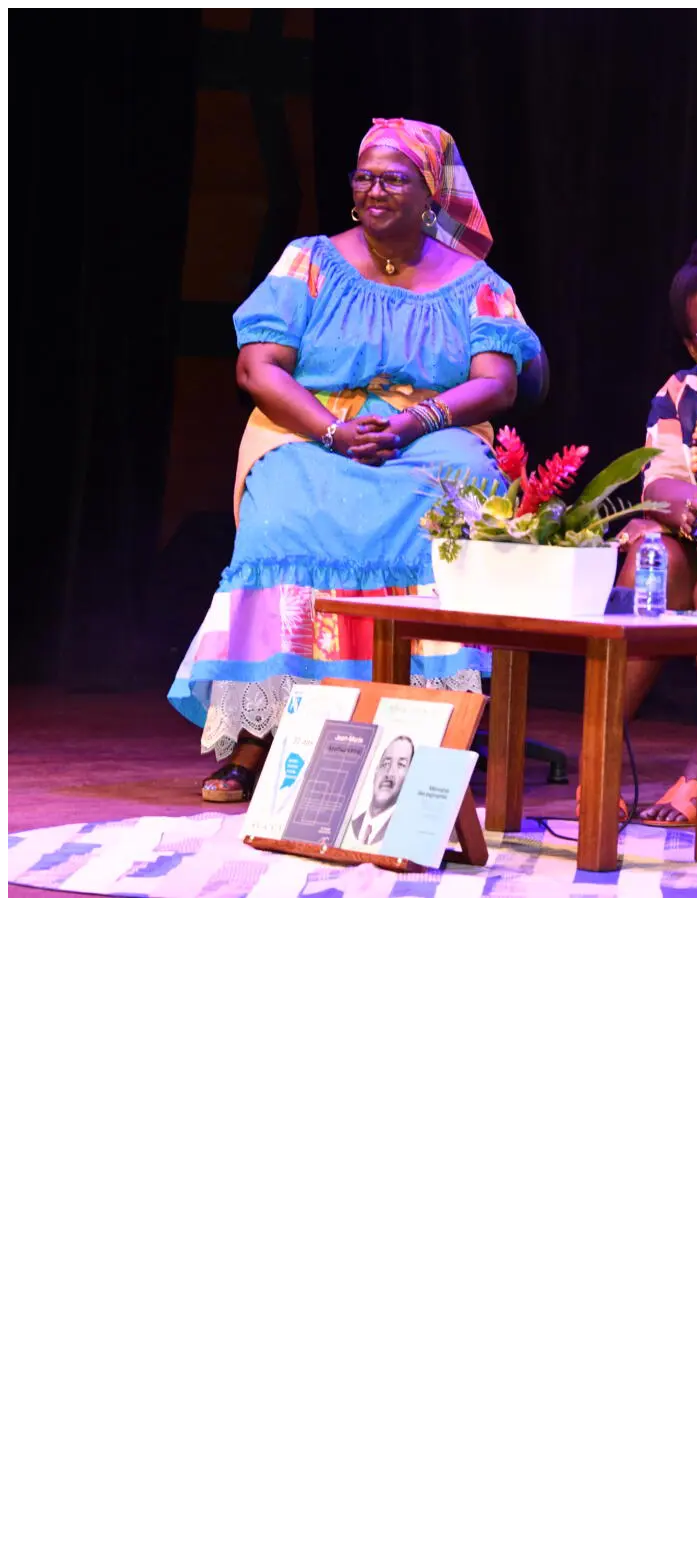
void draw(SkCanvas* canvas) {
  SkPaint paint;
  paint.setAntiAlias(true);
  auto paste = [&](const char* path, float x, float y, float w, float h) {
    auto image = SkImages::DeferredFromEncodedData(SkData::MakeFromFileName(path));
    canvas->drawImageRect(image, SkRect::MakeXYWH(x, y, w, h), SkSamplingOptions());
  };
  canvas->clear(0xffffffff);
  paste("img/1.png", 8, 8, 689, 890);
}
